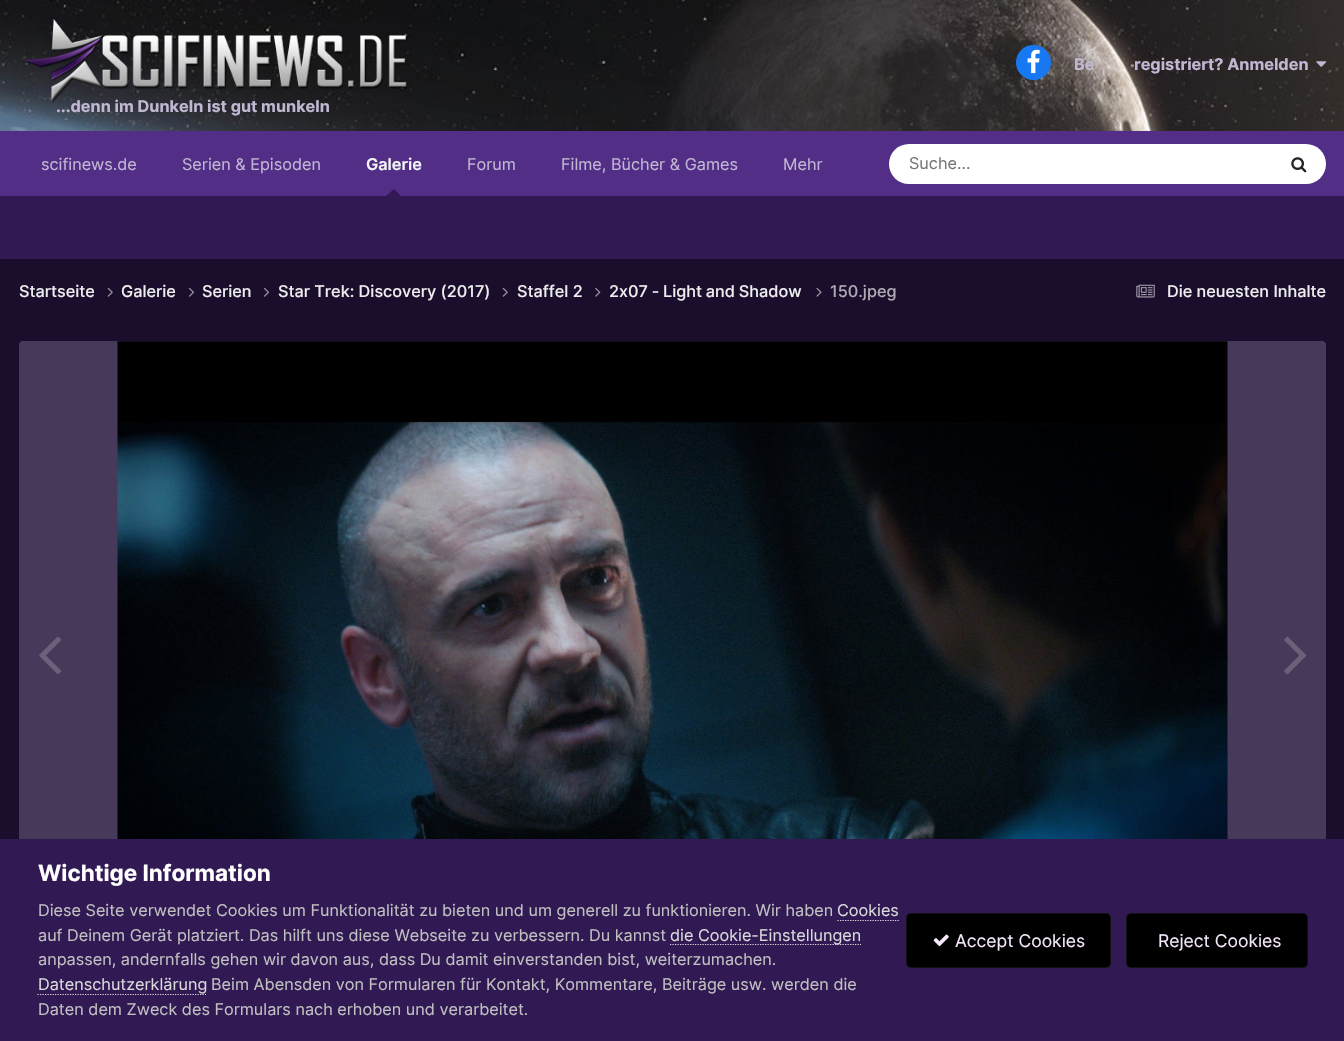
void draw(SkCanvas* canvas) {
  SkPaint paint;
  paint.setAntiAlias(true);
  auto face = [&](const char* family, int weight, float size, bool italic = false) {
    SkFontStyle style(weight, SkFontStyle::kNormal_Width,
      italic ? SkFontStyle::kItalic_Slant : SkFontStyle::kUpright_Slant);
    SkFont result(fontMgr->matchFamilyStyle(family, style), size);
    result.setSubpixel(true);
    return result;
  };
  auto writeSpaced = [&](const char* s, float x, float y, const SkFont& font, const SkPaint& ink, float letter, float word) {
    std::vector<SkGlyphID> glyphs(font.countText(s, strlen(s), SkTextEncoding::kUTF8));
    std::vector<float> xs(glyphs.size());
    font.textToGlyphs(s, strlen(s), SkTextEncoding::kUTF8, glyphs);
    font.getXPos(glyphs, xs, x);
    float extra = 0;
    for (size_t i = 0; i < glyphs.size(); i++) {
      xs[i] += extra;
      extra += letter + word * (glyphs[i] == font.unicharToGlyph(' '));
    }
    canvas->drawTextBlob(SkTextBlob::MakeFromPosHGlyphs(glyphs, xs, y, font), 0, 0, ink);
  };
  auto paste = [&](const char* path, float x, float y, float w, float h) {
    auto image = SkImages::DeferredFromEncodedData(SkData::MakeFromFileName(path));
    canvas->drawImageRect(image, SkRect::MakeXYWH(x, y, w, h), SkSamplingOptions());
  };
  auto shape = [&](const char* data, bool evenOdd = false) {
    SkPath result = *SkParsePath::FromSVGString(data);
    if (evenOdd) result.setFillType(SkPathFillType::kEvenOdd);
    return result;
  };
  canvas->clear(0xff1b0e2d);
  paste("img/1.png", 0, 0, 1344, 131);
  paste("img/2.png", 24, 19, 384, 84);
  paint.setColor(0xff1778f2);
  canvas->drawCircle(1033.5f, 62.5f, 17.5f, paint);
  paste("img/3.png", 1027, 49, 13, 25);
  paste("img/4.png", 1316, 61, 11, 6);
  paint.setColor(0xff522e87);
  canvas->drawRect(SkRect::MakeXYWH(0, 131, 1344, 65), paint);
  paint.setColor(0xff311953);
  canvas->drawPath(shape("M401 196H386L394 189Z"), paint);
  paint.setColor(0xffffffff);
  canvas->drawRoundRect(SkRect::MakeXYWH(889, 144, 437, 40), 20, 20, paint);
  paste("img/5.png", 1291, 157, 16, 16);
  paint.setColor(0xff311953);
  canvas->drawRect(SkRect::MakeXYWH(0, 196, 1344, 63), paint);
  paste("img/6.png", 107, 287, 6, 10);
  paste("img/7.png", 188, 287, 7, 10);
  paste("img/7.png", 263, 287, 7, 10);
  paste("img/6.png", 502, 287, 6, 10);
  paste("img/8.png", 595, 287, 6, 10);
  paste("img/9.png", 816, 287, 6, 10);
  paste("img/10.png", 1136, 284, 19, 14);
  paint.setColor(0xffaf8ee0);
  canvas->drawPath(shape("M24 341H1321C1324 341 1326 343 1326 346V966H19V346C19 343 21 341 24 341Z"), paint);
  paint.setColor(0x99000000);
  canvas->drawPath(shape("M24 341H1321C1324 341 1326 343 1326 346V966H19V346C19 343 21 341 24 341Z"), paint);
  paste("img/11.png", 117, 341, 1111, 498);
  paste("img/12.png", 39, 636, 22, 38);
  paste("img/13.png", 1284, 636, 22, 39);
  paint.setColor(0xff311953);
  canvas->drawRect(SkRect::MakeXYWH(0, 839, 1344, 202), paint);
  paint.setStroke(true);
  paint.setStrokeWidth(1.2f);
  paint.setColor(0xffdadada);
  paint.setPathEffect(SkDashPathEffect::Make({{1.25f, 1.25f}}, 0));
  canvas->drawPath(shape("M837.5 920.5H899"), paint);
  paint.setPathEffect(nullptr);
  paint.setPathEffect(SkDashPathEffect::Make({{1.25f, 1.25f}}, 0));
  canvas->drawPath(shape("M670 944.5H861"), paint);
  paint.setPathEffect(nullptr);
  paint.setPathEffect(SkDashPathEffect::Make({{1.25f, 1.25f}}, 0));
  canvas->drawPath(shape("M37.5 994.5H206"), paint);
  paint.setPathEffect(nullptr);
  paint.setStroke(false);
  paint.setColor(0xff000000);
  canvas->drawRoundRect(SkRect::MakeXYWH(906, 913, 205, 55), 5, 5, paint);
  paint.setStroke(true);
  paint.setStrokeWidth(1);
  paint.setColor(0x12f6e8fc);
  canvas->drawRoundRect(SkRect::MakeXYWH(906.5f, 913.5f, 204, 54), 4.5f, 4.5f, paint);
  paste("img/14.png", 933, 934, 16, 13);
  paint.setStroke(false);
  paint.setColor(0xff000000);
  canvas->drawRoundRect(SkRect::MakeXYWH(1126, 913, 182, 55), 5, 5, paint);
  paint.setStroke(true);
  paint.setColor(0x12f6e8fc);
  canvas->drawRoundRect(SkRect::MakeXYWH(1126.5f, 913.5f, 181, 54), 4.5f, 4.5f, paint);
  auto f0 = face("Inter", 700, 16.25f);
  paint.setStroke(false);
  paint.setColor(0xffc1b7d2);
  {
    const struct { const char* s; float x, y; } items[] = {
      {"Be", 1074, 70},
      {"registriert? Anmelden", 1134, 70},
      {"...denn im Dunkeln ist gut munkeln", 56, 112},
    };
    for (auto [s, x, y] : items) {
      canvas->drawString(s, x, y, f0, paint);
    }
  }
  auto f1 = face("Inter", 400, 16.25f);
  canvas->drawString("scifinews.de", 41, 170, f1, paint);
  canvas->drawString("Serien & Episoden", 182, 170, f1, paint);
  auto f2 = face("Inter", 600, 16.25f);
  paint.setColor(0xfff3f6f4);
  canvas->drawString("Galerie", 366, 170, f2, paint);
  paint.setColor(0xffc1b7d2);
  {
    const struct { const char* s; float x, y; } items[] = {
      {"Forum", 467, 170},
      {"Filme, Bücher & Games", 561, 170},
      {"Mehr", 783, 170},
    };
    for (auto [s, x, y] : items) {
      canvas->drawString(s, x, y, f1, paint);
    }
  }
  paint.setColor(0xff757575);
  canvas->drawString("Suche...", 909, 169, f1, paint);
  auto f3 = face("Inter", 500, 16.25f);
  paint.setColor(0xffeeeeee);
  {
    const struct { const char* s; float x, y; } items[] = {
      {"Startseite", 19, 297},
      {"Galerie", 121, 297},
      {"Serien", 202, 297},
      {"Star Trek: Discovery (2017)", 278, 297},
      {"Staffel 2", 517, 297},
    };
    for (auto [s, x, y] : items) {
      canvas->drawString(s, x, y, f3, paint);
    }
  }
  writeSpaced("2x07 - Light and Shadow", 609, 297, f3, paint, 0, -0.5f);
  paint.setColor(0xffafabb4);
  canvas->drawString("150.jpeg", 830, 297, f3, paint);
  paint.setColor(0xffeeeeee);
  canvas->drawString("Die neuesten Inhalte", 1167, 297, f3, paint);
  auto f4 = face("Inter", 700, 22.5f);
  paint.setColor(0xffffffff);
  canvas->drawString("Wichtige Information", 38, 881, f4, paint);
  paint.setColor(0xffc0c0c0);
  canvas->drawString("Diese Seite verwendet Cookies um Funktionalität zu bieten und um generell zu funktionieren. Wir haben", 38, 916, f1, paint);
  paint.setColor(0xffdadada);
  canvas->drawString("Cookies", 837, 916, f1, paint);
  paint.setColor(0xffc0c0c0);
  canvas->drawString("auf Deinem Gerät platziert. Das hilft uns diese Webseite zu verbessern. Du kannst", 38, 941, f1, paint);
  paint.setColor(0xffdadada);
  canvas->drawString("die Cookie-Einstellungen", 670, 941, f1, paint);
  paint.setColor(0xffc0c0c0);
  canvas->drawString("anpassen, andernfalls gehen wir davon aus, dass Du damit einverstanden bist, weiterzumachen.", 38, 965, f1, paint);
  paint.setColor(0xffdadada);
  canvas->drawString("Datenschutzerklärung", 38, 990, f1, paint);
  paint.setColor(0xffc0c0c0);
  canvas->drawString("Beim Abensden von Formularen für Kontakt, Kommentare, Beiträge usw. werden die", 211, 990, f1, paint);
  canvas->drawString("Daten dem Zweck des Formulars nach erhoben und verarbeitet.", 38, 1015, f1, paint);
  auto f5 = face("Inter", 400, 17.5f);
  paint.setColor(0xfff6e8fc);
  canvas->drawString("Accept Cookies", 955, 947, f5, paint);
  canvas->drawString("Reject Cookies", 1158, 947, f5, paint);
}
